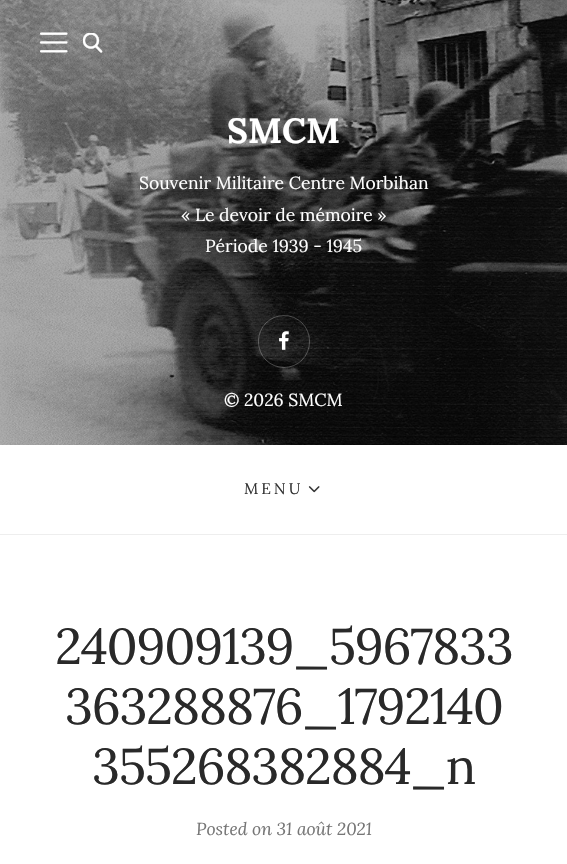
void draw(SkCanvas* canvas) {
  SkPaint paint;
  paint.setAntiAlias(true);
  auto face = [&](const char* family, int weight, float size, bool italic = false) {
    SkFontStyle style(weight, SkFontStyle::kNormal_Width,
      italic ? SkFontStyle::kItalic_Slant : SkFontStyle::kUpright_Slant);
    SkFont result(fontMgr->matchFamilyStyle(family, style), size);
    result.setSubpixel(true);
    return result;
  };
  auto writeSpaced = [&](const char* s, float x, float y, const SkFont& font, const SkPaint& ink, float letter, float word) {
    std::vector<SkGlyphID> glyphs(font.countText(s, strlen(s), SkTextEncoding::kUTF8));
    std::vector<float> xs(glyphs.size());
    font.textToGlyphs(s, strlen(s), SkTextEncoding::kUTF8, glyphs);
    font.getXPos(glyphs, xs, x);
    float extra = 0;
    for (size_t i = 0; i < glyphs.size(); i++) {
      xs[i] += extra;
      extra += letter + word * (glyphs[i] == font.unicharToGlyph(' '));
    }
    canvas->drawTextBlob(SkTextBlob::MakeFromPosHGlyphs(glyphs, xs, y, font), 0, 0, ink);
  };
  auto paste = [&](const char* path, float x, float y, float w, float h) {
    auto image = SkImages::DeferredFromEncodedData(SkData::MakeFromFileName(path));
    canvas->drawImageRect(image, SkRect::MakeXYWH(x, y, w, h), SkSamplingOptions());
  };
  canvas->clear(0xffffffff);
  paste("img/1.png", 0, 0, 567, 445);
  paste("img/2.png", 40, 32, 28, 21);
  paste("img/3.png", 83, 33, 20, 20);
  paint.setStroke(true);
  paint.setStrokeWidth(1);
  paint.setColor(0x40ffffff);
  canvas->drawRoundRect(SkRect::MakeXYWH(258.5f, 315.5f, 51, 52), 25.5f, 25.5f, paint);
  paste("img/4.png", 279, 331, 10, 19);
  paint.setStroke(false);
  paint.setColor(0xffeeeeee);
  canvas->drawRect(SkRect::MakeXYWH(0, 534, 567, 1), paint);
  paste("img/5.png", 308, 486, 12, 7);
  auto f0 = face("Lora", 700, 35);
  paint.setColor(0xffffffff);
  canvas->drawString("SMCM", 227, 143, f0, paint);
  auto f1 = face("Lora", 400, 17.5f);
  {
    const struct { const char* s; float x, y; } items[] = {
      {"Souvenir Militaire Centre Morbihan", 139, 189},
      {"« Le devoir de mémoire »", 181, 221},
      {"Période 1939 - 1945", 205, 252},
      {"© 2026 SMCM", 224, 406},
    };
    for (auto [s, x, y] : items) {
      canvas->drawString(s, x, y, f1, paint);
    }
  }
  auto f2 = face("Lora", 400, 15.5f);
  paint.setColor(0xff333333);
  writeSpaced("MENU", 244, 494, f2, paint, 3, 0);
  auto f3 = face("Lora", 400, 50.25f);
  paint.setColor(0xff292929);
  {
    const struct { const char* s; float x, y; } items[] = {
      {"240909139_5967833", 55, 664},
      {"363288876_1792140", 65, 724},
      {"355268382884_n", 92, 784},
    };
    for (auto [s, x, y] : items) {
      writeSpaced(s, x, y, f3, paint, -1.3f, 0);
    }
  }
  auto f4 = face("Lora", 400, 17.5f, true);
  paint.setColor(0xff767676);
  canvas->drawString("Posted on 31 août 2021", 196, 835, f4, paint);
}
